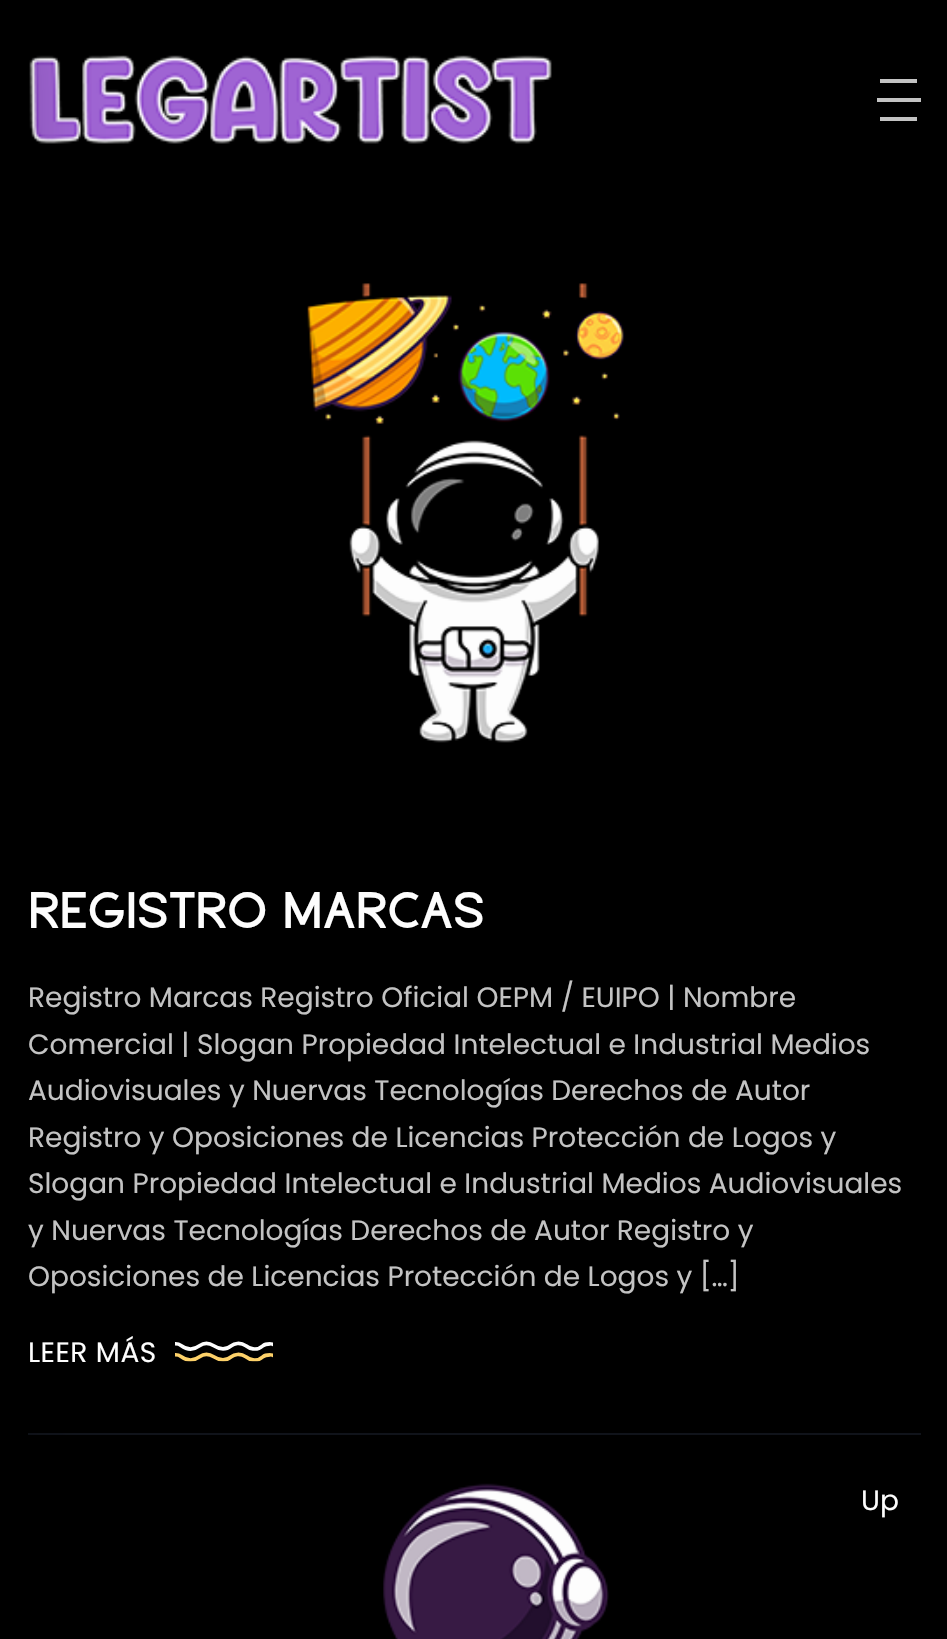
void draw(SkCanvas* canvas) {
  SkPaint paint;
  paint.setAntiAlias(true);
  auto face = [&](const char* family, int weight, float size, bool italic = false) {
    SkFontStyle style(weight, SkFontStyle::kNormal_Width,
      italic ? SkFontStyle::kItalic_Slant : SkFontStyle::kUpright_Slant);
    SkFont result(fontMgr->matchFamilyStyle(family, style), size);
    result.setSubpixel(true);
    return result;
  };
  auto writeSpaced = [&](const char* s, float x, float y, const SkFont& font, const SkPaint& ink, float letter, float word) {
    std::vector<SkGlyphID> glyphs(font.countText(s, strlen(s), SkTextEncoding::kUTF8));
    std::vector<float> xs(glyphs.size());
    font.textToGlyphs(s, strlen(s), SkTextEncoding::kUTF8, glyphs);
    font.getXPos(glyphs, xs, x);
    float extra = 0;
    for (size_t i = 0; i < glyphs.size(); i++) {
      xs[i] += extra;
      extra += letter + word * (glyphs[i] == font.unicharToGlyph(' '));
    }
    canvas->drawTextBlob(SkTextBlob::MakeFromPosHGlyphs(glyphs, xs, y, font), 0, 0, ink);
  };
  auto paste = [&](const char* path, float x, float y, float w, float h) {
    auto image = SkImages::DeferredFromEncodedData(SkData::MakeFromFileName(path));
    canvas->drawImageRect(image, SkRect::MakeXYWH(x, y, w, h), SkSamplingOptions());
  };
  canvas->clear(0xff000000);
  paste("img/1.png", 29, 55, 523, 89);
  {
    const struct { float x, y, w, h; SkColor color; } items[] = {
      {880, 79, 37, 4, 0xffc3c3c3},
      {877, 98, 44, 4, 0xffc3c3c3},
      {880, 117, 37, 4, 0xffc3c3c3},
      {28, 1433, 893, 2, 0xff10131a},
    };
    for (auto [x, y, w, h, color] : items) {
      paint.setColor(color);
      canvas->drawRect(SkRect::MakeXYWH(x, y, w, h), paint);
    }
  }
  paint.setColor(0x66000000);
  paint.setMaskFilter(SkMaskFilter::MakeBlur(kNormal_SkBlurStyle, 44));
  canvas->drawRect(SkRect::MakeXYWH(-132, 0, 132, 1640), paint);
  paint.setMaskFilter(nullptr);
  paste("img/2.png", 307, 283, 318, 460);
  paste("img/3.png", 175, 1341, 98, 10);
  paste("img/4.png", 175, 1352, 98, 10);
  paste("img/5.png", 383, 1483, 226, 156);
  auto f0 = face("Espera", 700, 51.25f);
  paint.setColor(0xfffdfdfd);
  canvas->drawString("REGISTRO MARCAS", 28, 928, f0, paint);
  auto f1 = face("Poppins", 400, 28);
  paint.setColor(0xffc3c3c3);
  {
    const struct { const char* s; float x, y; } items[] = {
      {"Registro Marcas Registro Oficial OEPM / EUIPO | Nombre", 28, 1007},
      {"Comercial | Slogan Propiedad Intelectual e Industrial Medios", 28, 1054},
      {"Audiovisuales y Nuervas Tecnologías Derechos de Autor", 28, 1100},
      {"Registro y Oposiciones de Licencias Protección de Logos y", 28, 1147},
      {"Slogan Propiedad Intelectual e Industrial Medios Audiovisuales", 28, 1193},
      {"y Nuervas Tecnologías Derechos de Autor Registro y", 28, 1240},
      {"Oposiciones de Licencias Protección de Logos y […]", 28, 1286},
    };
    for (auto [s, x, y] : items) {
      canvas->drawString(s, x, y, f1, paint);
    }
  }
  paint.setColor(0xfffdfdfd);
  writeSpaced("LEER MÁS", 28, 1362, f1, paint, 0.5f, 0);
  canvas->drawString("Up", 861, 1510, f1, paint);
}
